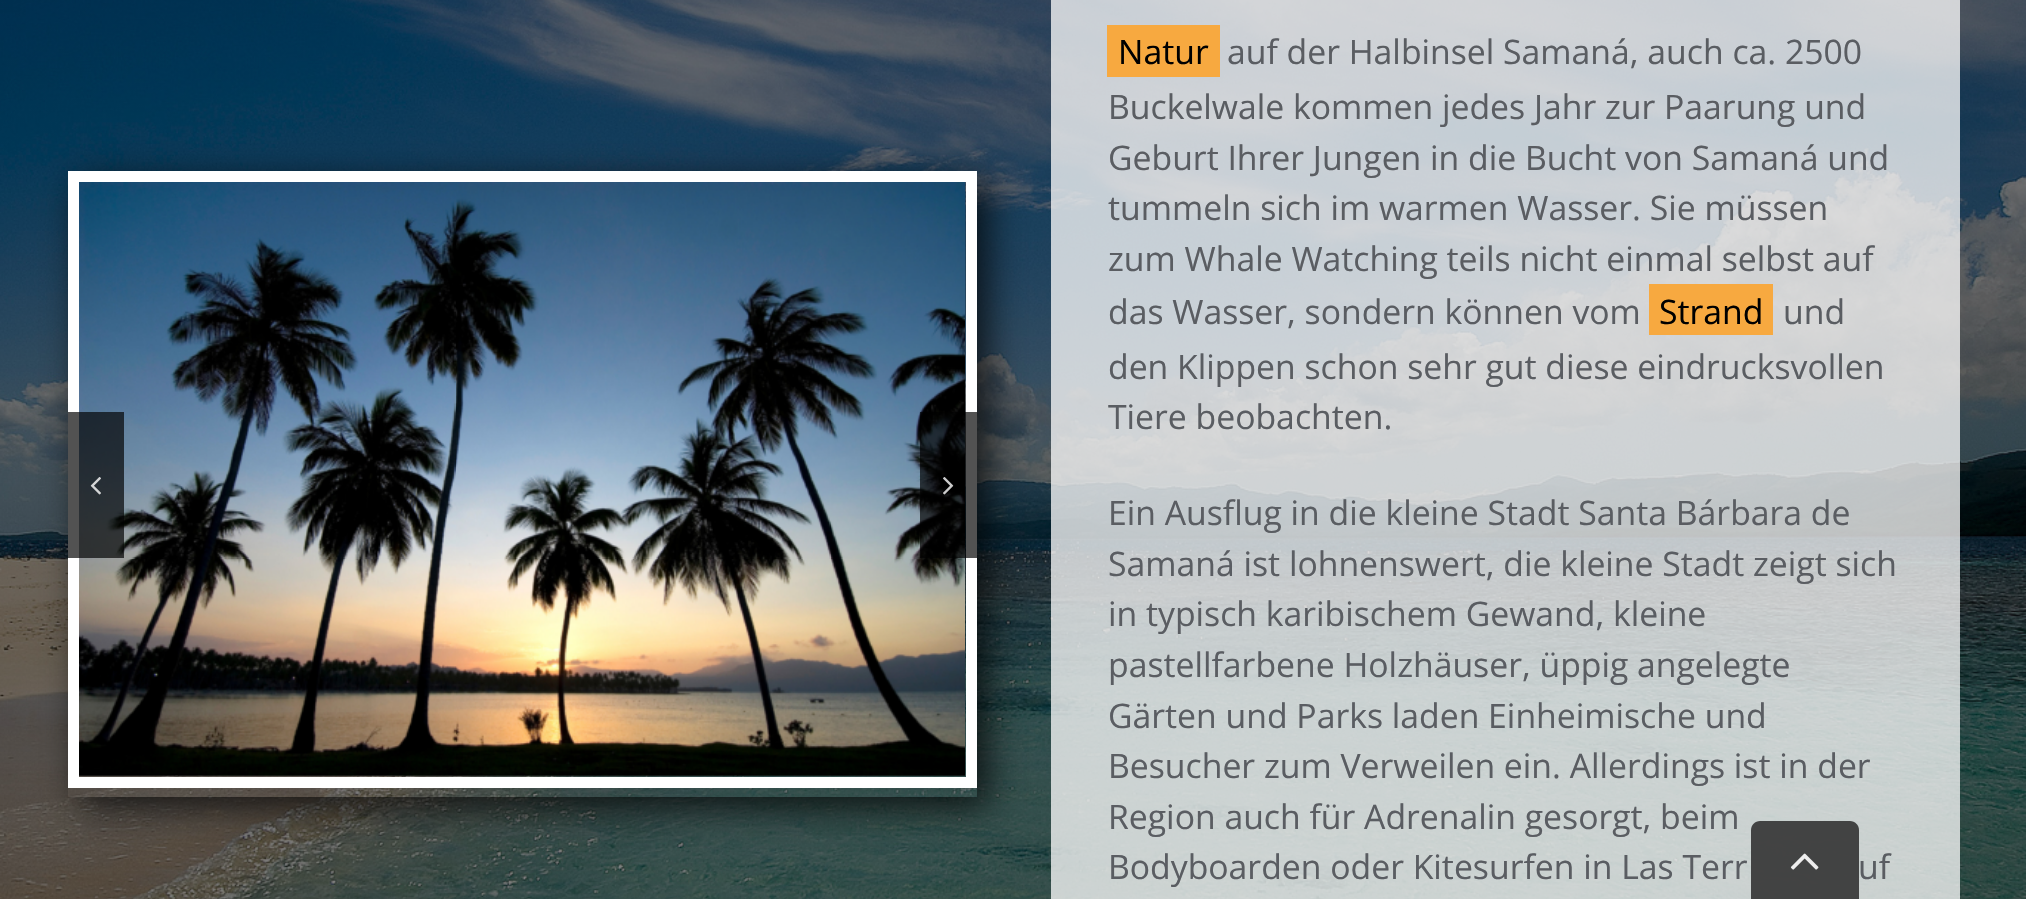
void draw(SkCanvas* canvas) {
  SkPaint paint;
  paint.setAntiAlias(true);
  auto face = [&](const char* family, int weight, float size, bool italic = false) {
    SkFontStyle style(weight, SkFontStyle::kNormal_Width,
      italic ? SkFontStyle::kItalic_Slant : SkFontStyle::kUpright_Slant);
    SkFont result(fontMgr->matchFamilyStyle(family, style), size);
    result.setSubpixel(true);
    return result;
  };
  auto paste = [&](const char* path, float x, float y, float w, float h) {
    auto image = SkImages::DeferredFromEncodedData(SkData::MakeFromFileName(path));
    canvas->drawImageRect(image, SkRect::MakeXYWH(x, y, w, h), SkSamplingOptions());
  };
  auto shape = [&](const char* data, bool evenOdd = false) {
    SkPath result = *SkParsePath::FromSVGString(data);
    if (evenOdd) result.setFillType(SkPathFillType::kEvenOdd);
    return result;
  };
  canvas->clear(0xffffffff);
  paste("img/1.png", 0, 0, 2026, 899);
  canvas->save();
  canvas->clipPath(shape("M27 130H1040V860H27ZM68 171H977V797H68Z", true), true);
  paint.setColor(0xbf000000);
  paint.setMaskFilter(SkMaskFilter::MakeBlur(kNormal_SkBlurStyle, 17));
  canvas->drawRect(SkRect::MakeXYWH(79, 182, 909, 626), paint);
  paint.setMaskFilter(nullptr);
  canvas->restore();
  paint.setStroke(true);
  paint.setStrokeWidth(11);
  paint.setColor(0xffffffff);
  canvas->drawRect(SkRect::MakeXYWH(73.5f, 176.5f, 898, 606), paint);
  paste("img/2.png", 79, 182, 886, 594);
  paint.setStroke(false);
  paint.setColor(0xad000000);
  canvas->drawRect(SkRect::MakeXYWH(68, 412, 56, 146), paint);
  paste("img/3.png", 90, 477, 11, 18);
  canvas->drawRect(SkRect::MakeXYWH(920, 412, 57, 146), paint);
  paste("img/4.png", 943, 477, 11, 18);
  {
    const struct { float x, y, w, h; SkColor color; } items[] = {
      {1051, 0, 909, 899, 0xbfffffff},
      {1107, 25, 113, 52, 0xfff7a940},
      {1649, 284, 124, 51, 0xfff7a940},
    };
    for (auto [x, y, w, h, color] : items) {
      paint.setColor(color);
      canvas->drawRect(SkRect::MakeXYWH(x, y, w, h), paint);
    }
  }
  paint.setColor(0xe6333333);
  canvas->drawPath(shape("M1760 821H1850C1855 821 1859 825 1859 830V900H1751V830C1751 825 1755 821 1760 821Z"), paint);
  paste("img/5.png", 1790, 853, 29, 17);
  auto f0 = face("Open Sans", 400, 33.75f);
  paint.setColor(0xff000000);
  canvas->drawString("Natur", 1118, 64, f0, paint);
  paint.setColor(0xff5a5d62);
  {
    const struct { const char* s; float x, y; } items[] = {
      {"auf der Halbinsel Samaná, auch ca. 2500", 1227, 64},
      {"Buckelwale kommen jedes Jahr zur Paarung und", 1108, 119},
      {"Geburt Ihrer Jungen in die Bucht von Samaná und", 1108, 170},
      {"tummeln sich im warmen Wasser. Sie müssen", 1108, 220},
      {"zum Whale Watching teils nicht einmal selbst auf", 1108, 271},
      {"das Wasser, sondern können vom", 1108, 324},
    };
    for (auto [s, x, y] : items) {
      canvas->drawString(s, x, y, f0, paint);
    }
  }
  paint.setColor(0xff000000);
  canvas->drawString("Strand", 1659, 324, f0, paint);
  paint.setColor(0xff5a5d62);
  {
    const struct { const char* s; float x, y; } items[] = {
      {"und", 1783, 324},
      {"den Klippen schon sehr gut diese eindrucksvollen", 1108, 379},
      {"Tiere beobachten.", 1108, 429},
      {"Ein Ausflug in die kleine Stadt Santa Bárbara de", 1108, 525},
      {"Samaná ist lohnenswert, die kleine Stadt zeigt sich", 1108, 576},
      {"in typisch karibischem Gewand, kleine", 1108, 626},
      {"pastellfarbene Holzhäuser, üppig angelegte", 1108, 677},
      {"Gärten und Parks laden Einheimische und", 1108, 728},
      {"Besucher zum Verweilen ein. Allerdings ist in der", 1108, 778},
      {"Region auch für Adrenalin gesorgt, beim", 1108, 829},
      {"Bodyboarden oder Kitesurfen in Las Terr", 1108, 879},
      {"uf", 1858, 879},
    };
    for (auto [s, x, y] : items) {
      canvas->drawString(s, x, y, f0, paint);
    }
  }
}
